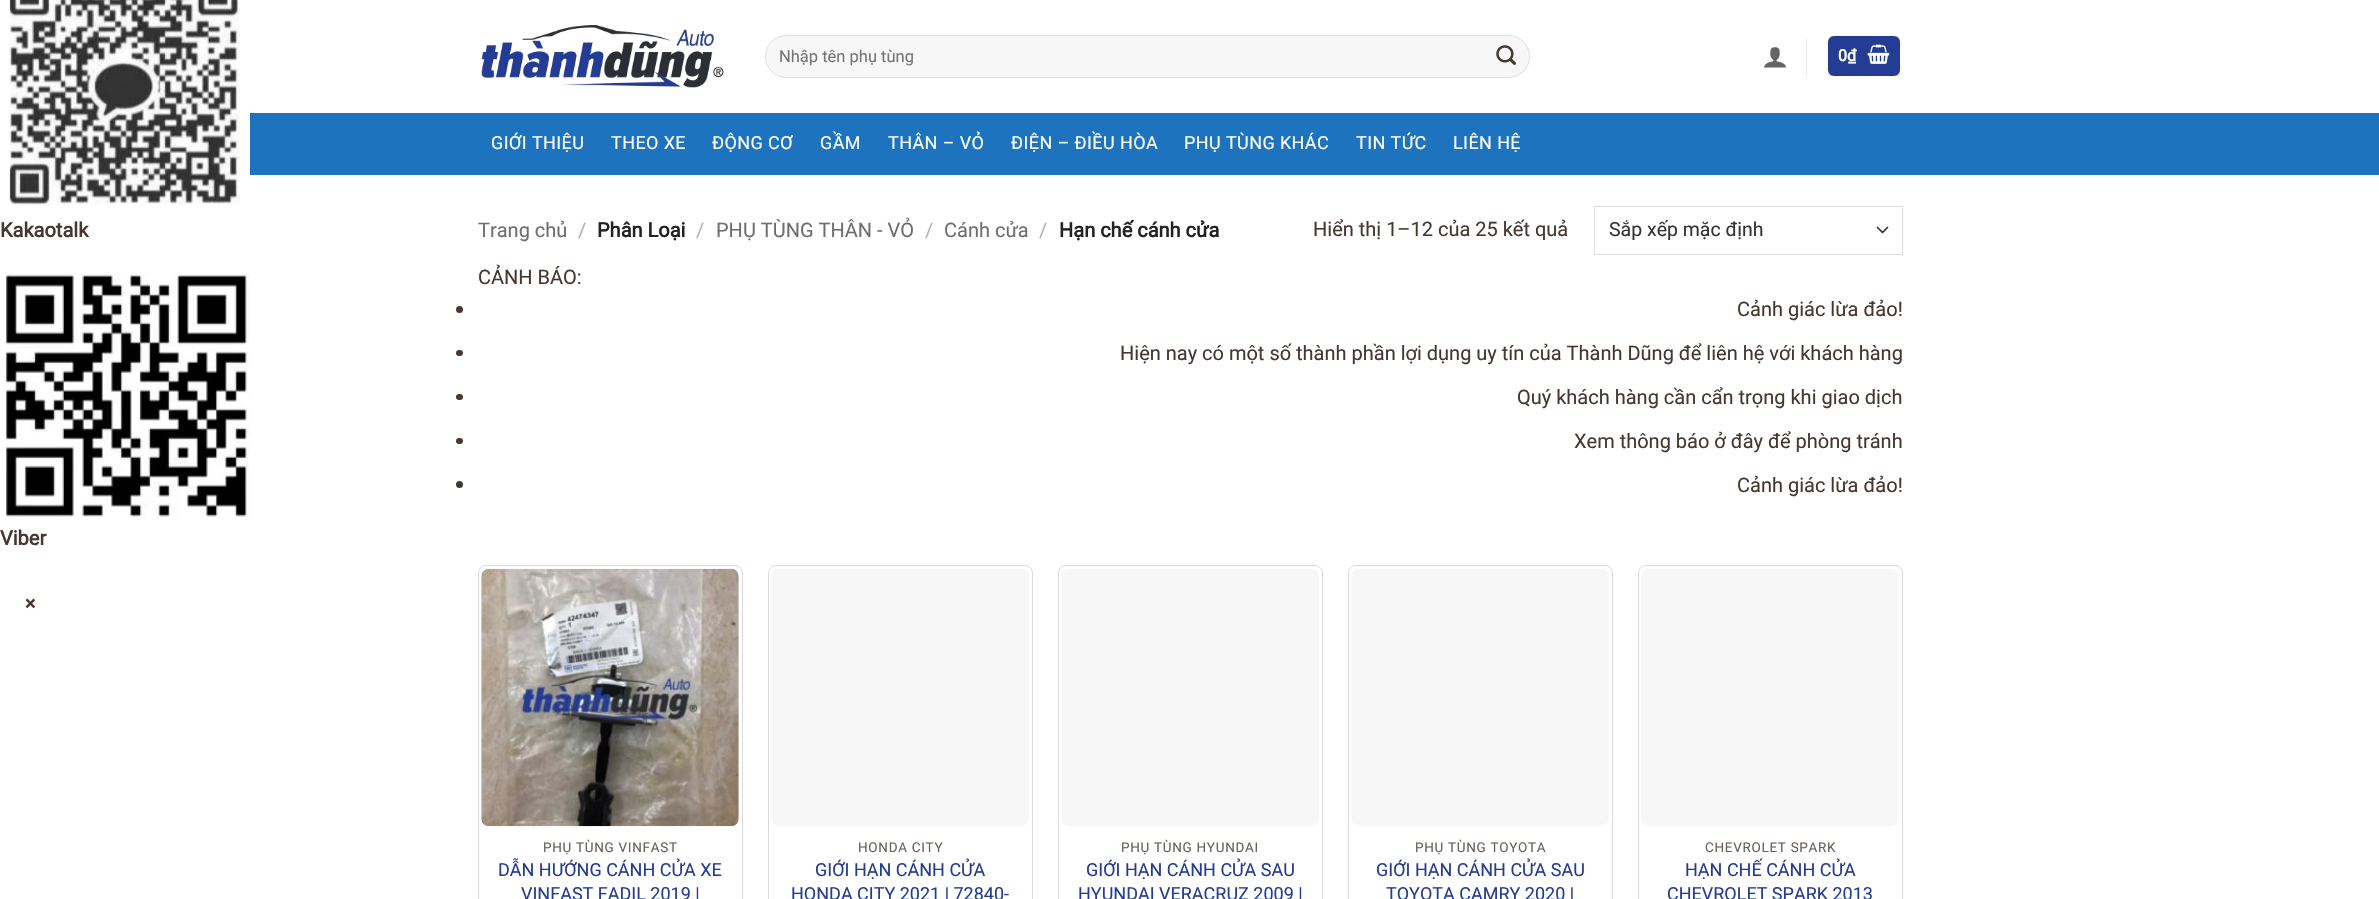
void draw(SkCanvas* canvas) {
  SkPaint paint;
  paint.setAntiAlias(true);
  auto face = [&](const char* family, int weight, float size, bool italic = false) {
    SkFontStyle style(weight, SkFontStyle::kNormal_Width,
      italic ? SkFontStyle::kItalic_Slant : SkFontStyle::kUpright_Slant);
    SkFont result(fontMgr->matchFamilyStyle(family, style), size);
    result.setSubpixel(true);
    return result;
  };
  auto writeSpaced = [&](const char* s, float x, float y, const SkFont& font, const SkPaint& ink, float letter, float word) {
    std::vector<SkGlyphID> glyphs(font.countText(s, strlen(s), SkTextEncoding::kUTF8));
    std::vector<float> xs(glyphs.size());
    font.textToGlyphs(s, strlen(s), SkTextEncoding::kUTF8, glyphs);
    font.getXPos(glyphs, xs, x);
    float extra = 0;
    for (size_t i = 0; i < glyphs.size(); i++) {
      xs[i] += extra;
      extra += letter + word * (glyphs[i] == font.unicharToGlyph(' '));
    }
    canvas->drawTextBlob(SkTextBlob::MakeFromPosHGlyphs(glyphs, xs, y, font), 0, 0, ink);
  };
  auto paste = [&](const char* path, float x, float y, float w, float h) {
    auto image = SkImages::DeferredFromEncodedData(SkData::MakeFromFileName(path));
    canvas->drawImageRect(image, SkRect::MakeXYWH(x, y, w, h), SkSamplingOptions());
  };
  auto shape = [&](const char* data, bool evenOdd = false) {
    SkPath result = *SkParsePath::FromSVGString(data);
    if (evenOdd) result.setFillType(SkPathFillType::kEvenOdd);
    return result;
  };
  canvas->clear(0xffffffff);
  paste("img/1.png", 0, 0, 250, 206);
  paste("img/2.png", 5, 273, 245, 247);
  paste("img/3.png", 481, 25, 243, 63);
  paint.setColor(0xfff7f7f7);
  canvas->drawRoundRect(SkRect::MakeXYWH(765, 35, 765, 43), 21.5f, 21.5f, paint);
  paint.setStroke(true);
  paint.setStrokeWidth(1);
  paint.setColor(0x17000000);
  canvas->drawRoundRect(SkRect::MakeXYWH(765.5f, 35.5f, 764, 42), 21, 21, paint);
  paste("img/4.png", 1496, 45, 20, 20);
  paste("img/5.png", 1764, 47, 22, 21);
  paint.setStroke(false);
  paint.setColor(0xffe6e6e6);
  canvas->drawRect(SkRect::MakeXYWH(1806, 38, 1, 37), paint);
  paint.setColor(0xff243c93);
  canvas->drawRoundRect(SkRect::MakeXYWH(1828, 36, 72, 40), 6, 6, paint);
  paint.setStroke(true);
  paint.setColor(0x0d000000);
  canvas->drawRect(SkRect::MakeXYWH(1828.5f, 36.5f, 71, 39), paint);
  paste("img/6.png", 1867, 44, 23, 20);
  paint.setStroke(false);
  paint.setColor(0xff1e73be);
  canvas->drawRect(SkRect::MakeXYWH(250, 113, 2129, 62), paint);
  paint.setColor(0xff226db0);
  canvas->drawRect(SkRect::MakeXYWH(478, 113, 1425, 1), paint);
  paint.setStroke(true);
  paint.setStrokeWidth(1.7f);
  paint.setStrokeCap(SkPaint::kRound_Cap);
  paint.setStrokeJoin(SkPaint::kRound_Join);
  paint.setColor(0xff333333);
  canvas->drawPath(shape("M1877.5 227.5L1882.5 232.5L1887.5 227.5"), paint);
  paint.setStrokeWidth(1);
  paint.setStrokeCap(SkPaint::kButt_Cap);
  paint.setStrokeJoin(SkPaint::kMiter_Join);
  paint.setColor(0xffdddddd);
  canvas->drawRect(SkRect::MakeXYWH(1594.5f, 206.5f, 308, 48), paint);
  paint.setStroke(false);
  paint.setColor(0xff473731);
  canvas->drawCircle(459.5f, 309.5f, 3.5f, paint);
  canvas->drawRoundRect(SkRect::MakeXYWH(456, 350, 7, 6), 3, 3, paint);
  canvas->drawRoundRect(SkRect::MakeXYWH(456, 394, 7, 6), 3, 3, paint);
  canvas->drawRoundRect(SkRect::MakeXYWH(456, 438, 7, 6), 3, 3, paint);
  canvas->drawCircle(459.5f, 484.5f, 3.5f, paint);
  paint.setStroke(true);
  paint.setColor(0xffdbdbdb);
  canvas->drawRoundRect(SkRect::MakeXYWH(478.5f, 565.5f, 264, 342), 7.5f, 7.5f, paint);
  paste("img/7.png", 481, 568, 258, 259);
  canvas->drawRoundRect(SkRect::MakeXYWH(768.5f, 565.5f, 264, 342), 7.5f, 7.5f, paint);
  paint.setStroke(false);
  paint.setColor(0xfff7f7f7);
  canvas->drawRoundRect(SkRect::MakeXYWH(771, 569, 258, 257), 8, 8, paint);
  paint.setStroke(true);
  paint.setColor(0xffdbdbdb);
  canvas->drawRoundRect(SkRect::MakeXYWH(1058.5f, 565.5f, 264, 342), 7.5f, 7.5f, paint);
  paint.setStroke(false);
  paint.setColor(0xfff7f7f7);
  canvas->drawRoundRect(SkRect::MakeXYWH(1061, 569, 258, 257), 8, 8, paint);
  paint.setStroke(true);
  paint.setColor(0xffdbdbdb);
  canvas->drawRoundRect(SkRect::MakeXYWH(1348.5f, 565.5f, 264, 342), 7.5f, 7.5f, paint);
  paint.setStroke(false);
  paint.setColor(0xfff7f7f7);
  canvas->drawRoundRect(SkRect::MakeXYWH(1351, 569, 258, 257), 8, 8, paint);
  paint.setStroke(true);
  paint.setColor(0xffdbdbdb);
  canvas->drawRoundRect(SkRect::MakeXYWH(1638.5f, 565.5f, 264, 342), 7.5f, 7.5f, paint);
  paint.setStroke(false);
  paint.setColor(0xfff7f7f7);
  canvas->drawRoundRect(SkRect::MakeXYWH(1641, 569, 258, 257), 8, 8, paint);
  auto f0 = face("Roboto", 700, 20);
  paint.setColor(0xff473731);
  canvas->drawString("Kakaotalk", 0, 237, f0, paint);
  canvas->drawString("Viber", 0, 545, f0, paint);
  auto f1 = face("Roboto", 700, 19.5f);
  writeSpaced("×", 25, 610, f1, paint, 1, 0);
  auto f2 = face("Roboto", 400, 16.5f);
  paint.setColor(0xff757575);
  canvas->drawString("Nhập tên phụ tùng", 779, 62, f2, paint);
  auto f3 = face("Roboto", 700, 16);
  paint.setColor(0xffffffff);
  canvas->drawString("0₫", 1838, 61, f3, paint);
  auto f4 = face("Roboto", 400, 18);
  {
    const struct { const char* s; float x, y; } items[] = {
      {"GIỚI THIỆU", 491, 149},
      {"THEO XE", 611, 149},
      {"ĐỘNG CƠ", 712, 149},
      {"GẦM", 820, 149},
      {"THÂN – VỎ", 888, 149},
      {"ĐIỆN – ĐIỀU HÒA", 1011, 149},
      {"PHỤ TÙNG KHÁC", 1184, 149},
      {"TIN TỨC", 1356, 149},
      {"LIÊN HỆ", 1453, 149},
    };
    for (auto [s, x, y] : items) {
      writeSpaced(s, x, y, f4, paint, 0.4f, 0);
    }
  }
  auto f5 = face("Roboto", 400, 20);
  paint.setColor(0xff6e6e6e);
  canvas->drawString("Trang chủ", 478, 237, f5, paint);
  paint.setColor(0xffb2b2b2);
  canvas->drawString("/", 578, 237, f5, paint);
  paint.setColor(0xff222222);
  canvas->drawString("Phân Loại", 597, 237, f0, paint);
  paint.setColor(0xffb2b2b2);
  canvas->drawString("/", 696, 237, f5, paint);
  paint.setColor(0xff6e6e6e);
  canvas->drawString("PHỤ TÙNG THÂN - VỎ", 716, 237, f5, paint);
  paint.setColor(0xffb2b2b2);
  canvas->drawString("/", 925, 237, f5, paint);
  paint.setColor(0xff6e6e6e);
  canvas->drawString("Cánh cửa", 944, 237, f5, paint);
  paint.setColor(0xffb2b2b2);
  canvas->drawString("/", 1039, 237, f5, paint);
  paint.setColor(0xff222222);
  canvas->drawString("Hạn chế cánh cửa", 1059, 237, f0, paint);
  paint.setColor(0xff473731);
  canvas->drawString("Hiển thị 1–12 của 25 kết quả", 1313, 236, f5, paint);
  auto f6 = face("Roboto", 400, 19.5f);
  paint.setColor(0xff333333);
  canvas->drawString("Sắp xếp mặc định", 1609, 236, f6, paint);
  paint.setColor(0xff473731);
  {
    const struct { const char* s; float x, y; } items[] = {
      {"CẢNH BÁO:", 478, 284},
      {"Cảnh giác lừa đảo!", 1737, 316},
      {"Hiện nay có một số thành phần lợi dụng uy tín của Thành Dũng để liên hệ với khách hàng", 1120, 360},
      {"Quý khách hàng cần cẩn trọng khi giao dịch", 1517, 404},
      {"Xem thông báo ở đây để phòng tránh", 1574, 448},
      {"Cảnh giác lừa đảo!", 1737, 492},
    };
    for (auto [s, x, y] : items) {
      canvas->drawString(s, x, y, f5, paint);
    }
  }
  auto f7 = face("Roboto", 400, 13.5f);
  paint.setColor(0xff6c5f5a);
  writeSpaced("PHỤ TÙNG VINFAST", 543, 852, f7, paint, 0.7f, 0);
  paint.setColor(0xff243c93);
  canvas->drawString("DẪN HƯỚNG CÁNH CỬA XE", 498, 876, f4, paint);
  canvas->drawString("VINFAST FADIL 2019 |", 521, 900, f4, paint);
  paint.setColor(0xff6c5f5a);
  writeSpaced("HONDA CITY", 858, 852, f7, paint, 0.7f, 0);
  paint.setColor(0xff243c93);
  canvas->drawString("GIỚI HẠN CÁNH CỬA", 815, 876, f4, paint);
  canvas->drawString("HONDA CITY 2021 | 72840-", 791, 900, f4, paint);
  paint.setColor(0xff6c5f5a);
  writeSpaced("PHỤ TÙNG HYUNDAI", 1121, 852, f7, paint, 0.7f, 0);
  paint.setColor(0xff243c93);
  canvas->drawString("GIỚI HẠN CÁNH CỬA SAU", 1086, 876, f4, paint);
  canvas->drawString("HYUNDAI VERACRUZ 2009 |", 1078, 900, f4, paint);
  paint.setColor(0xff6c5f5a);
  writeSpaced("PHỤ TÙNG TOYOTA", 1415, 852, f7, paint, 0.7f, 0);
  paint.setColor(0xff243c93);
  canvas->drawString("GIỚI HẠN CÁNH CỬA SAU", 1376, 876, f4, paint);
  canvas->drawString("TOYOTA CAMRY 2020 |", 1386, 900, f4, paint);
  paint.setColor(0xff6c5f5a);
  writeSpaced("CHEVROLET SPARK", 1705, 852, f7, paint, 0.7f, 0);
  paint.setColor(0xff243c93);
  canvas->drawString("HẠN CHẾ CÁNH CỬA", 1685, 876, f4, paint);
  canvas->drawString("CHEVROLET SPARK 2013", 1667, 900, f4, paint);
}
